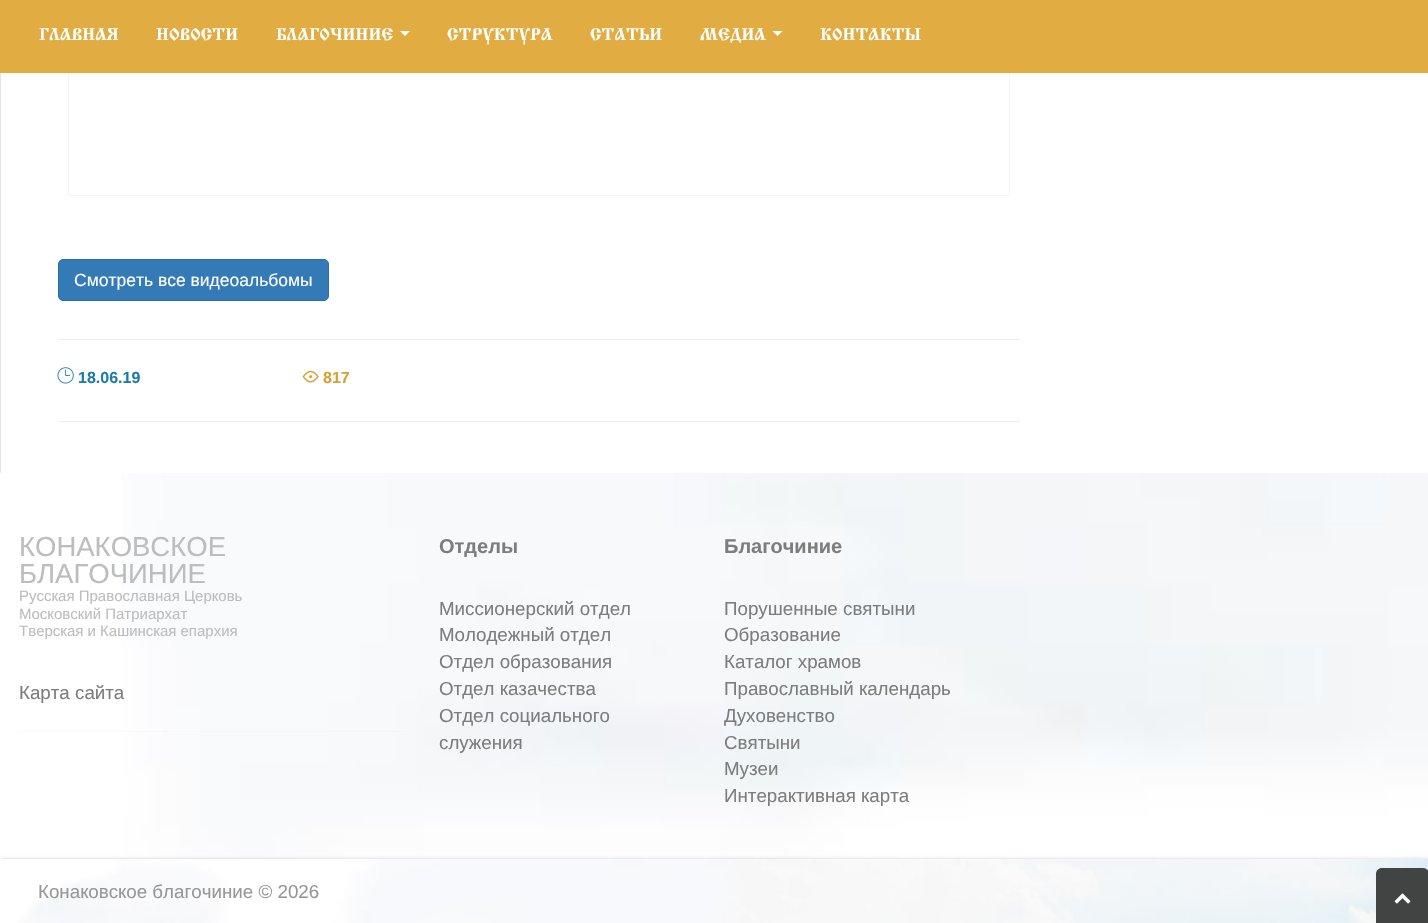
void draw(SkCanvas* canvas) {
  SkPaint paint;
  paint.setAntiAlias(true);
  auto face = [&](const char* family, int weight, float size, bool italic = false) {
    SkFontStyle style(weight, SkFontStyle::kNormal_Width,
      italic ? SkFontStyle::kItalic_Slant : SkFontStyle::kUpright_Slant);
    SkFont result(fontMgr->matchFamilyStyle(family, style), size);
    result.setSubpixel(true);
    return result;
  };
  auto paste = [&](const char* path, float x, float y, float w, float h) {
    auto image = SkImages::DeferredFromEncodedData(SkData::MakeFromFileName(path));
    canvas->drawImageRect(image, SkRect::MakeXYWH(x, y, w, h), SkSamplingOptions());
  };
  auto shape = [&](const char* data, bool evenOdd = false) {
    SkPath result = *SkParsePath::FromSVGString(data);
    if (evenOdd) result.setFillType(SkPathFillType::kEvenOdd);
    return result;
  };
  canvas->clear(0xffffffff);
  paste("img/1.png", 121, 473, 1307, 386);
  paint.setStroke(true);
  paint.setStrokeWidth(1);
  paint.setColor(0xfff3f3f3);
  canvas->drawRect(SkRect::MakeXYWH(68.5f, -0.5f, 941, 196), paint);
  paint.setStroke(false);
  paint.setColor(0xffe1ac42);
  canvas->drawRect(SkRect::MakeXYWH(0, 0, 1428, 73), paint);
  paint.setColor(0xffffffff);
  canvas->drawPath(shape("M400 31H410L405 36Z"), paint);
  canvas->drawPath(shape("M772.5 31H782.5L777.5 36Z"), paint);
  paint.setColor(0xffe5e5e5);
  canvas->drawRect(SkRect::MakeXYWH(0, 73, 1, 400), paint);
  paint.setColor(0xff337ab7);
  canvas->drawRoundRect(SkRect::MakeXYWH(58.5f, 259.5f, 270, 41), 4.5f, 4.5f, paint);
  paint.setStroke(true);
  paint.setColor(0xff2e6da4);
  canvas->drawRoundRect(SkRect::MakeXYWH(58.5f, 259.5f, 270, 41), 4.5f, 4.5f, paint);
  paint.setStroke(false);
  paint.setColor(0xffeeeeee);
  canvas->drawRect(SkRect::MakeXYWH(58, 339, 962, 1), paint);
  paste("img/2.png", 57, 367, 17, 17);
  paste("img/3.png", 302, 370, 17, 13);
  canvas->drawRect(SkRect::MakeXYWH(58, 421, 962, 1), paint);
  paint.setColor(0x4deeeeee);
  canvas->drawRect(SkRect::MakeXYWH(19, 731, 392, 1), paint);
  paint.setColor(0x4d000000);
  paint.setMaskFilter(SkMaskFilter::MakeBlur(kNormal_SkBlurStyle, 2));
  canvas->drawRect(SkRect::MakeXYWH(1, 860, 1427, 63), paint);
  paint.setMaskFilter(nullptr);
  paste("img/4.png", 0, 859, 1428, 64);
  paint.setColor(0xff424343);
  canvas->drawPath(shape("M1382 868H1423C1426.5 868 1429 870.5 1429 874V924H1376V874C1376 870.5 1378.5 868 1382 868Z"), paint);
  paste("img/5.png", 1394, 893, 17, 11);
  auto f0 = face("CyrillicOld", 700, 17.5f);
  paint.setColor(0xffffffff);
  {
    const struct { const char* s; float x, y; } items[] = {
      {"ГЛАВНАЯ", 39, 40},
      {"НОВОСТИ", 156, 40},
      {"БЛАГОЧИНИЕ", 276, 40},
      {"СТРУКТУРА", 447, 40},
      {"СТАТЬИ", 590, 40},
      {"МЕДИА", 700, 40},
      {"КОНТАКТЫ", 820, 40},
    };
    for (auto [s, x, y] : items) {
      canvas->drawString(s, x, y, f0, paint);
    }
  }
  auto f1 = face("Liberation Sans", 400, 17.5f);
  canvas->drawString("Смотреть все видеоальбомы", 74, 286, f1, paint);
  auto f2 = face("Liberation Sans", 700, 16);
  paint.setColor(0xff1e7cab);
  canvas->drawString("18.06.19", 78, 383, f2, paint);
  paint.setColor(0xffd8a133);
  canvas->drawString("817", 323, 383, f2, paint);
  auto f3 = face("Liberation Sans", 400, 27.5f);
  paint.setColor(0xffbdbdbd);
  canvas->drawString("КОНАКОВСКОЕ", 19, 556, f3, paint);
  canvas->drawString("БЛАГОЧИНИЕ", 19, 583, f3, paint);
  auto f4 = face("Liberation Sans", 400, 15);
  {
    const struct { const char* s; float x, y; } items[] = {
      {"Русская Православная Церковь", 19, 601},
      {"Московский Патриархат", 19, 619},
      {"Тверская и Кашинская епархия", 19, 636},
    };
    for (auto [s, x, y] : items) {
      canvas->drawString(s, x, y, f4, paint);
    }
  }
  auto f5 = face("Liberation Sans", 400, 18.75f);
  paint.setColor(0xff7d7d7d);
  canvas->drawString("Карта сайта", 19, 699, f5, paint);
  auto f6 = face("Liberation Sans", 700, 20);
  canvas->drawString("Отделы", 439, 553, f6, paint);
  {
    const struct { const char* s; float x, y; } items[] = {
      {"Миссионерский отдел", 439, 615},
      {"Молодежный отдел", 439, 641},
      {"Отдел образования", 439, 668},
      {"Отдел казачества", 439, 695},
      {"Отдел социального", 439, 722},
      {"служения", 439, 749},
    };
    for (auto [s, x, y] : items) {
      canvas->drawString(s, x, y, f5, paint);
    }
  }
  canvas->drawString("Благочиние", 724, 553, f6, paint);
  {
    const struct { const char* s; float x, y; } items[] = {
      {"Порушенные святыни", 724, 615},
      {"Образование", 724, 641},
      {"Каталог храмов", 724, 668},
      {"Православный календарь", 724, 695},
      {"Духовенство", 724, 722},
      {"Святыни", 724, 749},
      {"Музеи", 724, 775},
      {"Интерактивная карта", 724, 802},
    };
    for (auto [s, x, y] : items) {
      canvas->drawString(s, x, y, f5, paint);
    }
  }
  paint.setColor(0xff979798);
  canvas->drawString("Конаковское благочиние © 2026", 38, 898, f5, paint);
}
